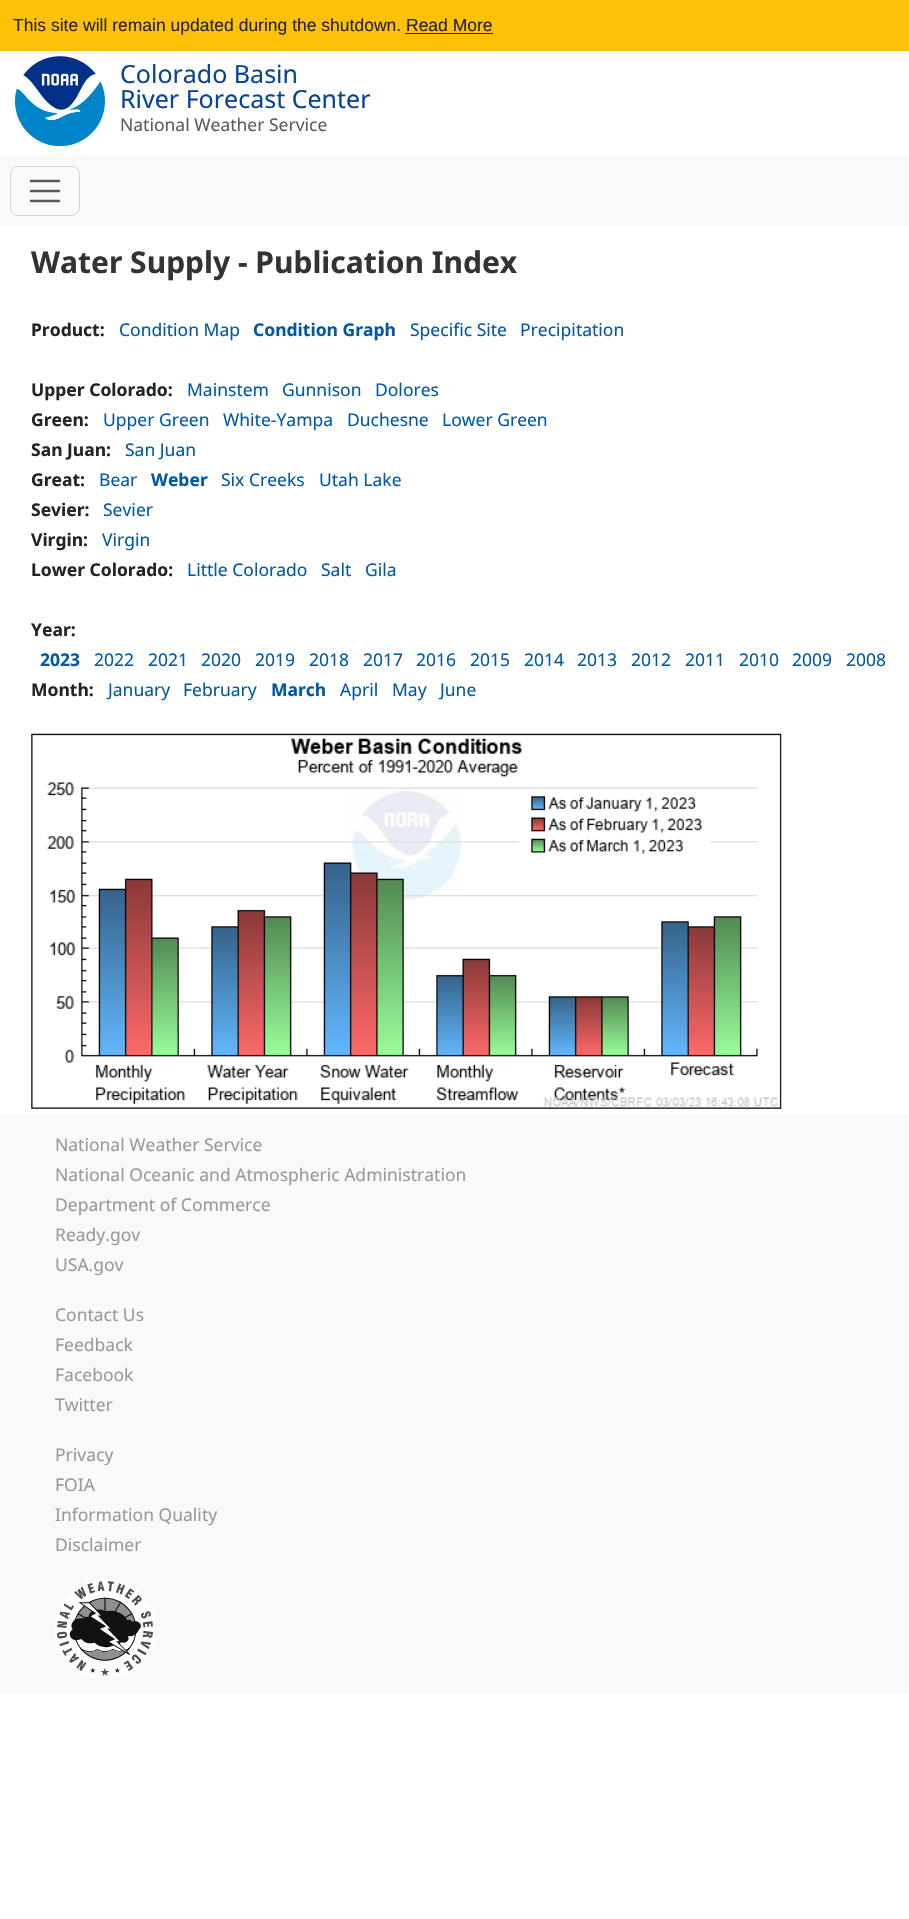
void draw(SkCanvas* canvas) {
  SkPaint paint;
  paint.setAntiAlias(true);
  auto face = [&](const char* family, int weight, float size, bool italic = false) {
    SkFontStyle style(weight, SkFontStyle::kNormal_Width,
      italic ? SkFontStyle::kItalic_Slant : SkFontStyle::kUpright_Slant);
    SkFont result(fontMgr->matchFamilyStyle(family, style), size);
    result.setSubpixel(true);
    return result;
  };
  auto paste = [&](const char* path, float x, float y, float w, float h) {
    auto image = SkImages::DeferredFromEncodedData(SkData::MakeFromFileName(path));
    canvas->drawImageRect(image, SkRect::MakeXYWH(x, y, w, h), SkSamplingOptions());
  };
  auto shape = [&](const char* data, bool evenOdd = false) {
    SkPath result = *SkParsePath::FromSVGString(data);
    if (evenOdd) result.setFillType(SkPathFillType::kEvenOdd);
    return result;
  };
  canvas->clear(0xffffffff);
  paint.setColor(0xffffc107);
  canvas->drawRect(SkRect::MakeXYWH(0, 0, 909, 51), paint);
  paint.setColor(0xff212529);
  canvas->drawRect(SkRect::MakeXYWH(405, 33, 88, 1), paint);
  paste("img/1.png", 15, 56, 90, 90);
  paint.setColor(0xfff8f9fa);
  canvas->drawRect(SkRect::MakeXYWH(0, 156, 909, 70), paint);
  paint.setStroke(true);
  paint.setStrokeWidth(1);
  paint.setColor(0xffd3d4d5);
  canvas->drawRoundRect(SkRect::MakeXYWH(10.5f, 166.5f, 69, 49), 7.5f, 7.5f, paint);
  paint.setStrokeWidth(2.5f);
  paint.setStrokeCap(SkPaint::kRound_Cap);
  paint.setColor(0xff575a5d);
  canvas->drawPath(shape("M31 181H59M31 191H59M31 201H59"), paint);
  paste("img/2.png", 31, 733, 751, 376);
  paint.setStroke(false);
  paint.setColor(0xfff8f9fa);
  canvas->drawRect(SkRect::MakeXYWH(0, 1114, 909, 580), paint);
  paste("img/3.png", 55, 1579, 100, 99);
  auto f0 = face("Liberation Sans", 400, 17.5f);
  paint.setColor(0xff212529);
  canvas->drawString("This site will remain updated during the shutdown. Read More", 13, 31, f0, paint);
  auto f1 = face("Noto Sans", 400, 25);
  paint.setColor(0xff0a4595);
  canvas->drawString("Colorado Basin", 120, 83, f1, paint);
  canvas->drawString("River Forecast Center", 120, 108, f1, paint);
  auto f2 = face("Noto Sans", 400, 17.5f);
  paint.setColor(0xff595c5f);
  canvas->drawString("National Weather Service", 120, 131, f2, paint);
  auto f3 = face("Noto Sans", 700, 30);
  paint.setColor(0xff333333);
  canvas->drawString("Water Supply - Publication Index", 31, 273, f3, paint);
  auto f4 = face("Noto Sans", 700, 17.5f);
  paint.setColor(0xff212529);
  canvas->drawString("Product:", 31, 336, f4, paint);
  paint.setColor(0xff0058a6);
  canvas->drawString("Condition Map", 119, 336, f2, paint);
  canvas->drawString("Condition Graph", 253, 336, f4, paint);
  canvas->drawString("Specific Site", 410, 336, f2, paint);
  canvas->drawString("Precipitation", 520, 336, f2, paint);
  paint.setColor(0xff212529);
  canvas->drawString("Upper Colorado:", 31, 396, f4, paint);
  paint.setColor(0xff0058a6);
  {
    const struct { const char* s; float x, y; } items[] = {
      {"Mainstem", 187, 396},
      {"Gunnison", 282, 396},
      {"Dolores", 375, 396},
    };
    for (auto [s, x, y] : items) {
      canvas->drawString(s, x, y, f2, paint);
    }
  }
  paint.setColor(0xff212529);
  canvas->drawString("Green:", 31, 426, f4, paint);
  paint.setColor(0xff0058a6);
  {
    const struct { const char* s; float x, y; } items[] = {
      {"Upper Green", 103, 426},
      {"White-Yampa", 223, 426},
      {"Duchesne", 347, 426},
      {"Lower Green", 442, 426},
    };
    for (auto [s, x, y] : items) {
      canvas->drawString(s, x, y, f2, paint);
    }
  }
  paint.setColor(0xff212529);
  canvas->drawString("San Juan:", 31, 456, f4, paint);
  paint.setColor(0xff0058a6);
  canvas->drawString("San Juan", 125, 456, f2, paint);
  paint.setColor(0xff212529);
  canvas->drawString("Great:", 31, 486, f4, paint);
  paint.setColor(0xff0058a6);
  canvas->drawString("Bear", 99, 486, f2, paint);
  canvas->drawString("Weber", 151, 486, f4, paint);
  canvas->drawString("Six Creeks", 221, 486, f2, paint);
  canvas->drawString("Utah Lake", 319, 486, f2, paint);
  paint.setColor(0xff212529);
  canvas->drawString("Sevier:", 31, 516, f4, paint);
  paint.setColor(0xff0058a6);
  canvas->drawString("Sevier", 103, 516, f2, paint);
  paint.setColor(0xff212529);
  canvas->drawString("Virgin:", 31, 546, f4, paint);
  paint.setColor(0xff0058a6);
  canvas->drawString("Virgin", 102, 546, f2, paint);
  paint.setColor(0xff212529);
  canvas->drawString("Lower Colorado:", 31, 576, f4, paint);
  paint.setColor(0xff0058a6);
  {
    const struct { const char* s; float x, y; } items[] = {
      {"Little Colorado", 187, 576},
      {"Salt", 321, 576},
      {"Gila", 365, 576},
    };
    for (auto [s, x, y] : items) {
      canvas->drawString(s, x, y, f2, paint);
    }
  }
  paint.setColor(0xff212529);
  canvas->drawString("Year:", 31, 636, f4, paint);
  paint.setColor(0xff0058a6);
  canvas->drawString("2023", 40, 666, f4, paint);
  {
    const struct { const char* s; float x, y; } items[] = {
      {"2022", 94, 666},
      {"2021", 148, 666},
      {"2020", 201, 666},
      {"2019", 255, 666},
      {"2018", 309, 666},
      {"2017", 363, 666},
      {"2016", 416, 666},
      {"2015", 470, 666},
      {"2014", 524, 666},
      {"2013", 577, 666},
      {"2012", 631, 666},
      {"2011", 685, 666},
      {"2010", 739, 666},
      {"2009", 792, 666},
      {"2008", 846, 666},
    };
    for (auto [s, x, y] : items) {
      canvas->drawString(s, x, y, f2, paint);
    }
  }
  paint.setColor(0xff212529);
  canvas->drawString("Month:", 31, 696, f4, paint);
  paint.setColor(0xff0058a6);
  canvas->drawString("January", 108, 696, f2, paint);
  canvas->drawString("February", 183, 696, f2, paint);
  canvas->drawString("March", 271, 696, f4, paint);
  {
    const struct { const char* s; float x, y; } items[] = {
      {"April", 340, 696},
      {"May", 392, 696},
      {"June", 440, 696},
    };
    for (auto [s, x, y] : items) {
      canvas->drawString(s, x, y, f2, paint);
    }
  }
  paint.setColor(0xff999999);
  {
    const struct { const char* s; float x, y; } items[] = {
      {"National Weather Service", 55, 1151},
      {"National Oceanic and Atmospheric Administration", 55, 1181},
      {"Department of Commerce", 55, 1211},
      {"Ready.gov", 55, 1241},
      {"USA.gov", 55, 1271},
      {"Contact Us", 55, 1321},
      {"Feedback", 55, 1351},
      {"Facebook", 55, 1381},
      {"Twitter", 55, 1411},
      {"Privacy", 55, 1461},
      {"FOIA", 55, 1491},
      {"Information Quality", 55, 1521},
      {"Disclaimer", 55, 1551},
    };
    for (auto [s, x, y] : items) {
      canvas->drawString(s, x, y, f2, paint);
    }
  }
}
